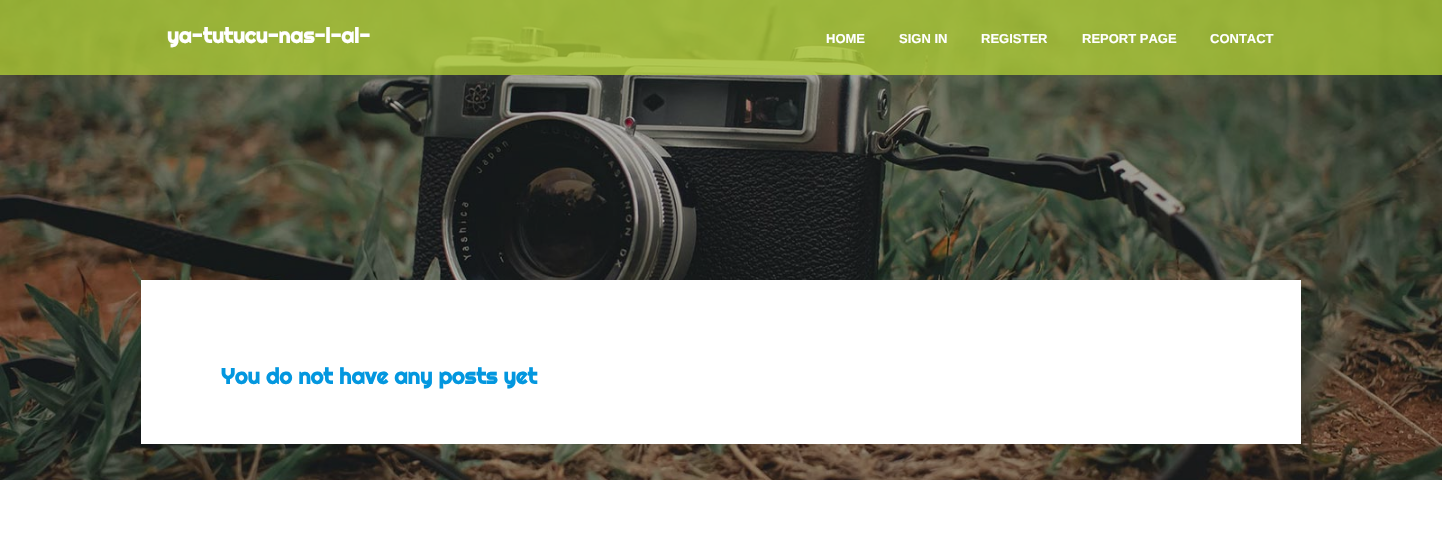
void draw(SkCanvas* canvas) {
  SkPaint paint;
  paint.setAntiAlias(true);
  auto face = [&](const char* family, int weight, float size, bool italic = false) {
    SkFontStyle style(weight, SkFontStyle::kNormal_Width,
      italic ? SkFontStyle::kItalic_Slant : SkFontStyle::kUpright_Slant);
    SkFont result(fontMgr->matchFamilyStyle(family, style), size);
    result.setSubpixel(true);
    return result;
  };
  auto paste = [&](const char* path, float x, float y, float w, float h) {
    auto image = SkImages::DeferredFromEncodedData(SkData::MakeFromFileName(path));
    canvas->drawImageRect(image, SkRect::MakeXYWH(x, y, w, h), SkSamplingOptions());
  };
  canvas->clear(0xffffffff);
  paste("img/1.png", 0, 0, 1442, 480);
  paint.setColor(0xbfb3d236);
  canvas->drawRect(SkRect::MakeXYWH(0, 0, 1442, 75), paint);
  paint.setColor(0xffffffff);
  canvas->drawRect(SkRect::MakeXYWH(141, 280, 1160, 164), paint);
  auto f0 = face("Righteous", 700, 21);
  canvas->drawString("ya-tutucu-nas-l-al-", 167, 43, f0, paint);
  auto f1 = face("Liberation Sans", 700, 13);
  {
    const struct { const char* s; float x, y; } items[] = {
      {"HOME", 826, 43},
      {"SIGN IN", 899, 43},
      {"REGISTER", 981, 43},
      {"REPORT PAGE", 1082, 43},
      {"CONTACT", 1210, 43},
    };
    for (auto [s, x, y] : items) {
      canvas->drawString(s, x, y, f1, paint);
    }
  }
  auto f2 = face("Righteous", 700, 22);
  paint.setColor(0xff0397df);
  canvas->drawString("You do not have any posts yet", 221, 384, f2, paint);
}
